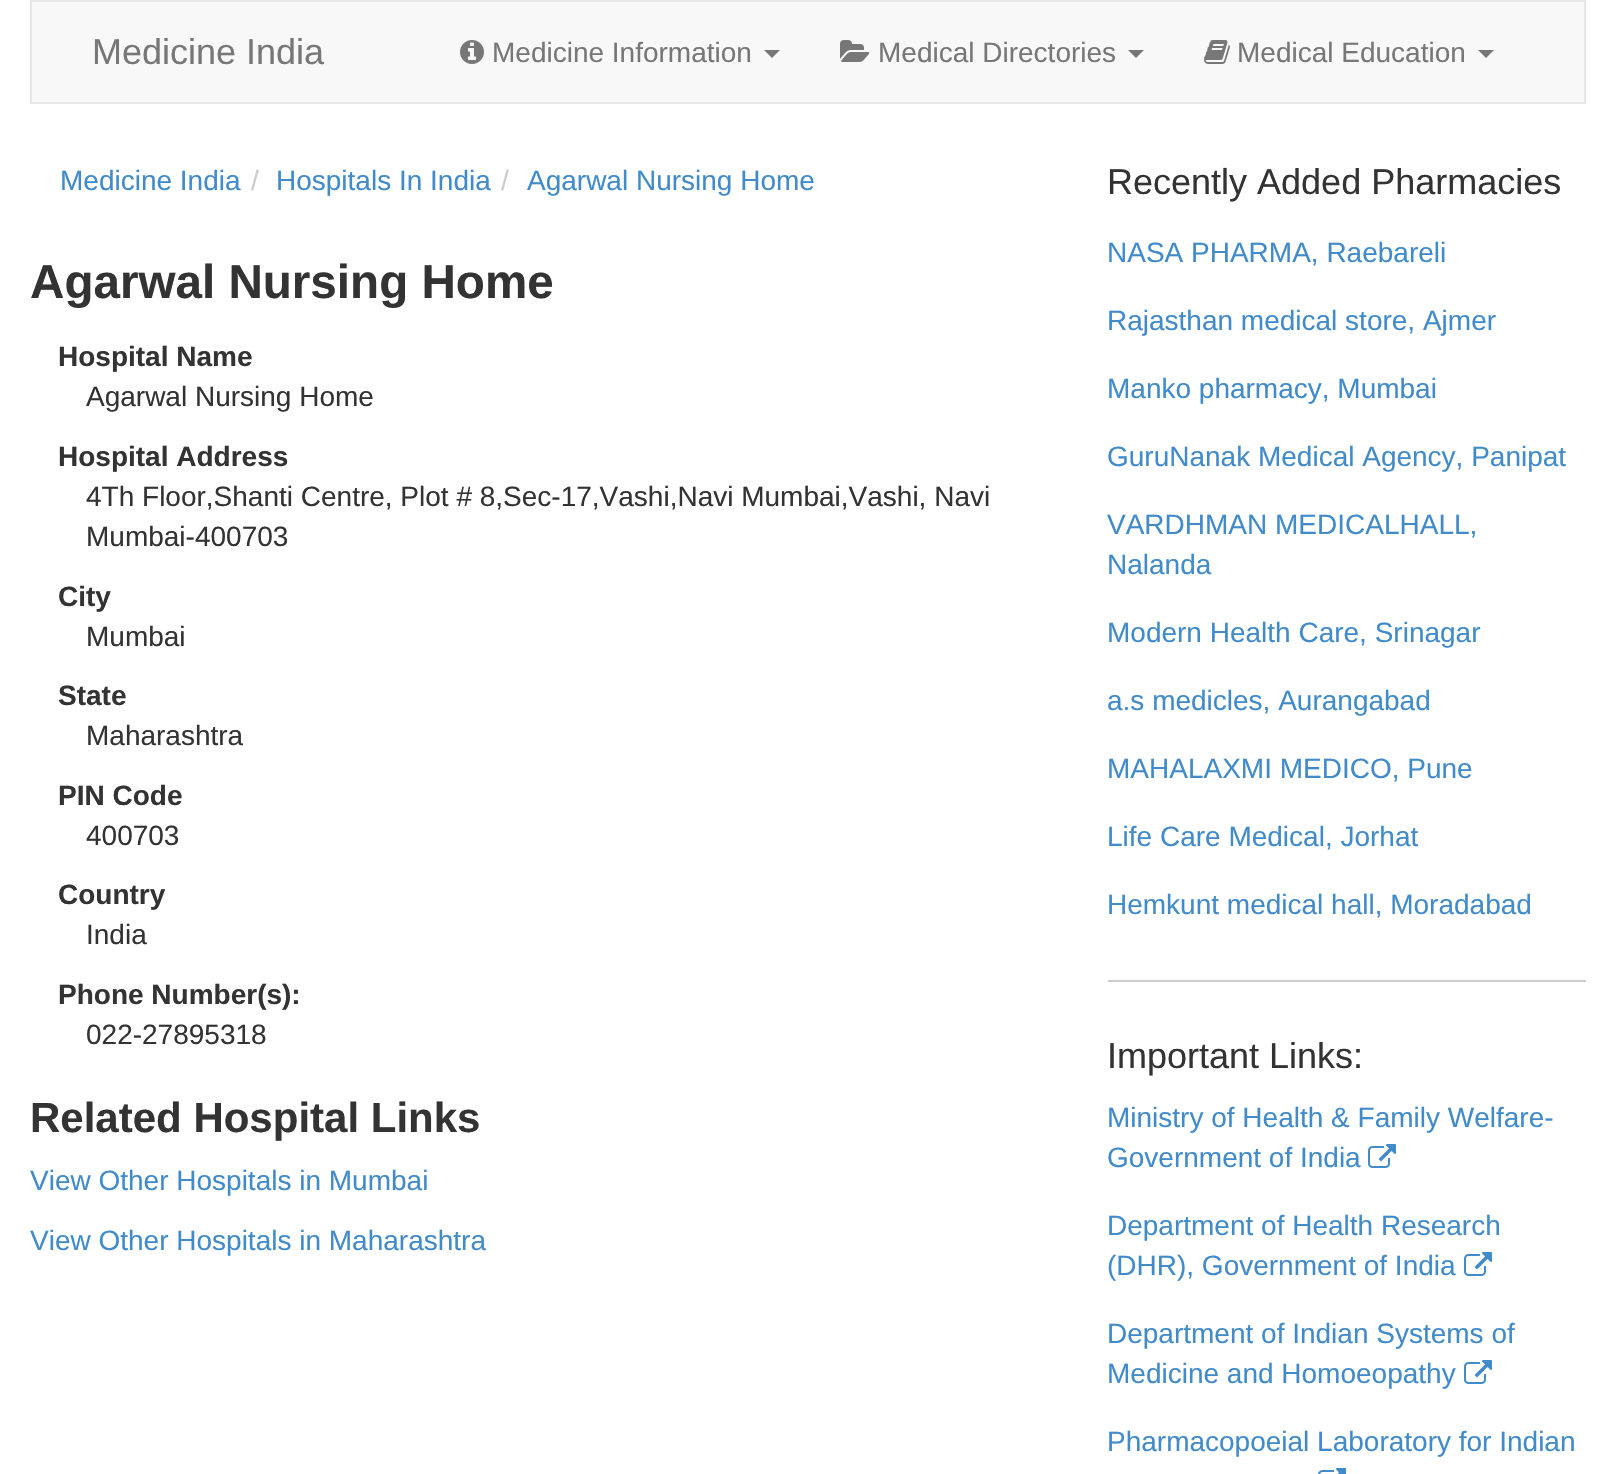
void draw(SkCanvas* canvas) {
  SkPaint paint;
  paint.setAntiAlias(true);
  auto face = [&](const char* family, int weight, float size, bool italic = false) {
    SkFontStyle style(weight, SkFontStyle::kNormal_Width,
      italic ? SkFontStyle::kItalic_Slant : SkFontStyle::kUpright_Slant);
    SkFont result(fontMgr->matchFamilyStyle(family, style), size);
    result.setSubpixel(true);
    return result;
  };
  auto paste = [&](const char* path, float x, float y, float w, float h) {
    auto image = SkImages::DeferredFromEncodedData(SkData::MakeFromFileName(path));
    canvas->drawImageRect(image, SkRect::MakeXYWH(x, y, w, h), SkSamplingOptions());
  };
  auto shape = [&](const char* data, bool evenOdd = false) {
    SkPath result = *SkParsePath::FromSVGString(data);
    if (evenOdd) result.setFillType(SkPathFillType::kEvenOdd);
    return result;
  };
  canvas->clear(0xffffffff);
  paint.setColor(0xfff8f8f8);
  canvas->drawRect(SkRect::MakeXYWH(31, 1, 1554, 102), paint);
  paint.setStroke(true);
  paint.setStrokeWidth(2);
  paint.setColor(0xffe7e7e7);
  canvas->drawRect(SkRect::MakeXYWH(31, 1, 1554, 102), paint);
  paste("img/1.png", 460, 40, 24, 24);
  paint.setStroke(false);
  paint.setColor(0xff777777);
  canvas->drawPath(shape("M764 50H780L772 58Z"), paint);
  paste("img/2.png", 840, 40, 30, 22);
  canvas->drawPath(shape("M1128 50H1144L1136 58Z"), paint);
  paste("img/3.png", 1204, 40, 26, 24);
  canvas->drawPath(shape("M1478 50H1494L1486 58Z"), paint);
  paint.setColor(0xffcccccc);
  canvas->drawRect(SkRect::MakeXYWH(1108, 980, 478, 2), paint);
  paste("img/4.png", 1368, 1144, 28, 24);
  paste("img/4.png", 1464, 1252, 28, 24);
  paste("img/4.png", 1464, 1360, 28, 24);
  paste("img/5.png", 1318, 1468, 28, 6);
  auto f0 = face("Liberation Sans", 400, 36);
  paint.setColor(0xff777777);
  canvas->drawString("Medicine India", 92, 64, f0, paint);
  auto f1 = face("Liberation Sans", 400, 28);
  {
    const struct { const char* s; float x, y; } items[] = {
      {"Medicine Information", 492, 62},
      {"Medical Directories", 878, 62},
      {"Medical Education", 1237, 62},
    };
    for (auto [s, x, y] : items) {
      canvas->drawString(s, x, y, f1, paint);
    }
  }
  paint.setColor(0xff428bca);
  canvas->drawString("Medicine India", 60, 190, f1, paint);
  paint.setColor(0xffcccccc);
  canvas->drawString("/", 251, 190, f1, paint);
  paint.setColor(0xff428bca);
  canvas->drawString("Hospitals In India", 276, 190, f1, paint);
  paint.setColor(0xffcccccc);
  canvas->drawString("/", 501, 190, f1, paint);
  paint.setColor(0xff428bca);
  canvas->drawString("Agarwal Nursing Home", 527, 190, f1, paint);
  auto f2 = face("Liberation Sans", 700, 47.6f);
  paint.setColor(0xff333333);
  canvas->drawString("Agarwal Nursing Home", 30, 298, f2, paint);
  auto f3 = face("Liberation Sans", 700, 28);
  canvas->drawString("Hospital Name", 58, 366, f3, paint);
  canvas->drawString("Agarwal Nursing Home", 86, 406, f1, paint);
  canvas->drawString("Hospital Address", 58, 466, f3, paint);
  canvas->drawString("4Th Floor,Shanti Centre, Plot # 8,Sec-17,Vashi,Navi Mumbai,Vashi, Navi", 86, 506, f1, paint);
  canvas->drawString("Mumbai-400703", 86, 546, f1, paint);
  canvas->drawString("City", 58, 606, f3, paint);
  canvas->drawString("Mumbai", 86, 646, f1, paint);
  canvas->drawString("State", 58, 705, f3, paint);
  canvas->drawString("Maharashtra", 86, 745, f1, paint);
  canvas->drawString("PIN Code", 58, 805, f3, paint);
  canvas->drawString("400703", 86, 845, f1, paint);
  canvas->drawString("Country", 58, 904, f3, paint);
  canvas->drawString("India", 86, 944, f1, paint);
  canvas->drawString("Phone Number(s):", 58, 1004, f3, paint);
  canvas->drawString("022-27895318", 86, 1044, f1, paint);
  auto f4 = face("Liberation Sans", 700, 42);
  canvas->drawString("Related Hospital Links", 30, 1132, f4, paint);
  paint.setColor(0xff428bca);
  canvas->drawString("View Other Hospitals in Mumbai", 30, 1190, f1, paint);
  canvas->drawString("View Other Hospitals in Maharashtra", 30, 1250, f1, paint);
  paint.setColor(0xff333333);
  canvas->drawString("Recently Added Pharmacies", 1107, 194, f0, paint);
  paint.setColor(0xff428bca);
  {
    const struct { const char* s; float x, y; } items[] = {
      {"NASA PHARMA, Raebareli", 1107, 262},
      {"Rajasthan medical store, Ajmer", 1107, 330},
      {"Manko pharmacy, Mumbai", 1107, 398},
      {"GuruNanak Medical Agency, Panipat", 1107, 466},
      {"VARDHMAN MEDICALHALL,", 1107, 534},
      {"Nalanda", 1107, 574},
      {"Modern Health Care, Srinagar", 1107, 642},
      {"a.s medicles, Aurangabad", 1107, 710},
      {"MAHALAXMI MEDICO, Pune", 1107, 778},
      {"Life Care Medical, Jorhat", 1107, 846},
      {"Hemkunt medical hall, Moradabad", 1107, 914},
    };
    for (auto [s, x, y] : items) {
      canvas->drawString(s, x, y, f1, paint);
    }
  }
  paint.setColor(0xff333333);
  canvas->drawString("Important Links:", 1107, 1068, f0, paint);
  paint.setColor(0xff428bca);
  {
    const struct { const char* s; float x, y; } items[] = {
      {"Ministry of Health & Family Welfare-", 1107, 1127},
      {"Government of India", 1107, 1167},
      {"Department of Health Research", 1107, 1235},
      {"(DHR), Government of India", 1107, 1275},
      {"Department of Indian Systems of", 1107, 1343},
      {"Medicine and Homoeopathy", 1107, 1383},
      {"Pharmacopoeial Laboratory for Indian", 1107, 1451},
    };
    for (auto [s, x, y] : items) {
      canvas->drawString(s, x, y, f1, paint);
    }
  }
}
